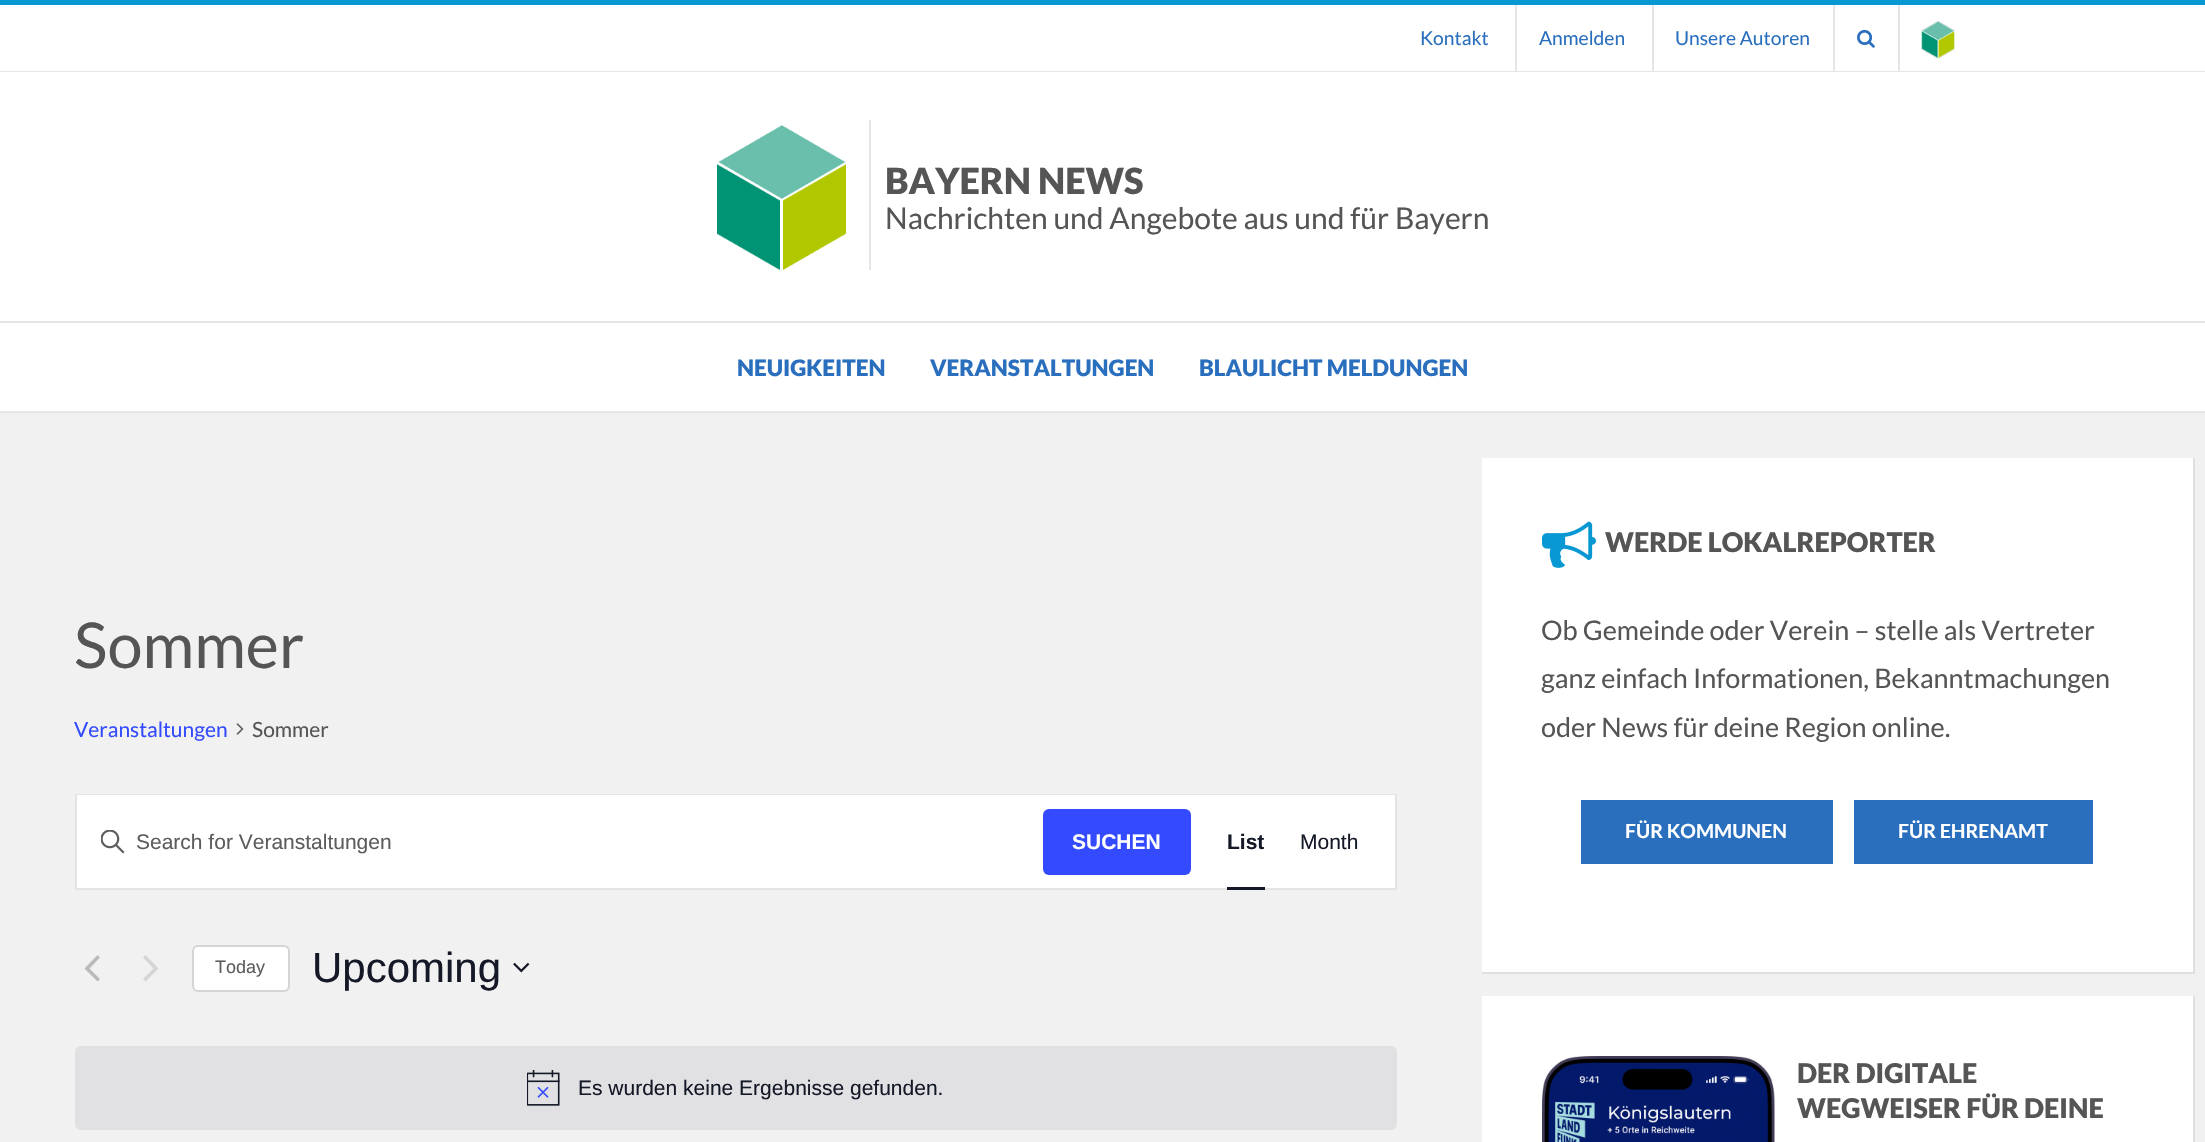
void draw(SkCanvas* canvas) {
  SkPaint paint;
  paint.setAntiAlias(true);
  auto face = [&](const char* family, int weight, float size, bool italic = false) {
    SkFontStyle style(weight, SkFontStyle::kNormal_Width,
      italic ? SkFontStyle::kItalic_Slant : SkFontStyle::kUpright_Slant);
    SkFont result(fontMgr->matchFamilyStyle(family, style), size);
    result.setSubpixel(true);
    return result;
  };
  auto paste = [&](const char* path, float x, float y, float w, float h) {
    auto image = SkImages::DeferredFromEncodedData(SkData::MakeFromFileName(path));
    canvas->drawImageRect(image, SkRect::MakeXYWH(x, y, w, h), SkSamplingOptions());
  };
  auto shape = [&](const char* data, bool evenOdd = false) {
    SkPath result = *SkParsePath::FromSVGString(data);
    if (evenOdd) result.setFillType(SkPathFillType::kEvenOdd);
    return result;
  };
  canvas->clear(0xfff1f1f1);
  {
    const struct { float x, y, w, h; SkColor color; } items[] = {
      {0, 5, 2205, 66, 0xffffffff},
      {0, 0, 2205, 5, 0xff0798d4},
      {0, 71, 2205, 1, 0xffe5e5e5},
      {1515, 5, 2, 66, 0xffe5e5e5},
      {1652, 5, 2, 66, 0xffe5e5e5},
      {1833, 5, 2, 66, 0xffe5e5e5},
    };
    for (auto [x, y, w, h, color] : items) {
      paint.setColor(color);
      canvas->drawRect(SkRect::MakeXYWH(x, y, w, h), paint);
    }
  }
  paste("img/1.png", 1857, 29, 18, 19);
  canvas->drawRect(SkRect::MakeXYWH(1898, 5, 2, 66), paint);
  paste("img/2.png", 1921, 21, 34, 38);
  paint.setColor(0xffffffff);
  canvas->drawRect(SkRect::MakeXYWH(0, 72, 2205, 249), paint);
  paste("img/3.png", 717, 125, 129, 145);
  {
    const struct { float x, y, w, h; SkColor color; } items[] = {
      {869, 120, 2, 150, 0xffe5e5e5},
      {0, 323, 2205, 88, 0xffffffff},
      {0, 321, 2205, 2, 0xffe5e5e5},
      {0, 411, 2205, 2, 0xffe5e5e5},
    };
    for (auto [x, y, w, h, color] : items) {
      paint.setColor(color);
      canvas->drawRect(SkRect::MakeXYWH(x, y, w, h), paint);
    }
  }
  paste("img/4.png", 236, 723, 8, 12);
  paint.setStroke(true);
  paint.setStrokeWidth(2);
  paint.setColor(0xffe4e4e4);
  canvas->drawRect(SkRect::MakeXYWH(76, 795, 1320, 94), paint);
  paint.setStroke(false);
  paint.setColor(0xffffffff);
  canvas->drawRect(SkRect::MakeXYWH(77, 795, 1318, 93), paint);
  paste("img/5.png", 101, 830, 24, 24);
  paint.setColor(0xff334aff);
  canvas->drawRoundRect(SkRect::MakeXYWH(1043, 809, 148, 66), 6, 6, paint);
  paint.setColor(0xff141827);
  canvas->drawRect(SkRect::MakeXYWH(1227, 887, 38, 3), paint);
  paint.setColor(0xffbababa);
  canvas->drawPath(shape("M100 979L97.5 981.5L84.5 968.5L97.5 955L100 957.5L89.5 968.5Z"), paint);
  paint.setColor(0xffd5d5d5);
  canvas->drawPath(shape("M143 957.5L145.5 955L158.5 968.5L145.5 981.5L143 979L153.5 968.5Z"), paint);
  paint.setColor(0xffffffff);
  canvas->drawRoundRect(SkRect::MakeXYWH(193, 946, 96, 45), 5, 5, paint);
  paint.setStroke(true);
  paint.setColor(0xffd5d5d5);
  canvas->drawRoundRect(SkRect::MakeXYWH(193, 946, 96, 45), 5, 5, paint);
  paste("img/6.png", 513, 962, 17, 11);
  paint.setStroke(false);
  paint.setColor(0xffe1e1e3);
  canvas->drawRoundRect(SkRect::MakeXYWH(75, 1046, 1322, 84), 6, 6, paint);
  paste("img/7.png", 527, 1070, 33, 36);
  {
    const struct { float x, y, w, h; SkColor color; } items[] = {
      {1482, 458, 711, 514, 0xffffffff},
      {2193, 458, 2, 516, 0xffdfdfdd},
      {1482, 972, 713, 2, 0xffdfdfdd},
    };
    for (auto [x, y, w, h, color] : items) {
      paint.setColor(color);
      canvas->drawRect(SkRect::MakeXYWH(x, y, w, h), paint);
    }
  }
  paste("img/8.png", 1542, 521, 54, 47);
  {
    const struct { float x, y, w, h; SkColor color; } items[] = {
      {1581, 800, 252, 64, 0xff2a6fbe},
      {1854, 800, 239, 64, 0xff2a6fbe},
      {1482, 996, 711, 146, 0xffffffff},
      {2193, 996, 2, 146, 0xffdfdfdd},
    };
    for (auto [x, y, w, h, color] : items) {
      paint.setColor(color);
      canvas->drawRect(SkRect::MakeXYWH(x, y, w, h), paint);
    }
  }
  paste("img/9.png", 1542, 1056, 233, 86);
  auto f0 = face("Lato", 400, 19.25f);
  paint.setColor(0xff2a6fbe);
  {
    const struct { const char* s; float x, y; } items[] = {
      {"Kontakt", 1420, 45},
      {"Anmelden", 1539, 45},
      {"Unsere Autoren", 1675, 45},
    };
    for (auto [s, x, y] : items) {
      canvas->drawString(s, x, y, f0, paint);
    }
  }
  auto f1 = face("Lato", 900, 36);
  paint.setColor(0xff555555);
  canvas->drawString("BAYERN NEWS", 885, 194, f1, paint);
  auto f2 = face("Lato", 400, 30);
  canvas->drawString("Nachrichten und Angebote aus und für Bayern", 885, 229, f2, paint);
  auto f3 = face("Lato", 900, 22.5f);
  paint.setColor(0xff2a6fbe);
  {
    const struct { const char* s; float x, y; } items[] = {
      {"NEUIGKEITEN", 737, 376},
      {"VERANSTALTUNGEN", 930, 376},
      {"BLAULICHT MELDUNGEN", 1199, 376},
    };
    for (auto [s, x, y] : items) {
      canvas->drawString(s, x, y, f3, paint);
    }
  }
  auto f4 = face("Lato", 400, 63);
  paint.setColor(0xff555555);
  canvas->drawString("Sommer", 74, 668, f4, paint);
  auto f5 = face("Lato", 400, 21);
  paint.setColor(0xff334aff);
  canvas->drawString("Veranstaltungen", 74, 737, f5, paint);
  paint.setColor(0xff555555);
  canvas->drawString("Sommer", 252, 737, f5, paint);
  auto f6 = face("Liberation Sans", 400, 21);
  paint.setColor(0xff5d5d5d);
  canvas->drawString("Search for Veranstaltungen", 136, 849, f6, paint);
  auto f7 = face("Liberation Sans", 700, 21);
  paint.setColor(0xffffffff);
  canvas->drawString("SUCHEN", 1072, 849, f7, paint);
  paint.setColor(0xff141827);
  canvas->drawString("List", 1227, 849, f7, paint);
  canvas->drawString("Month", 1300, 849, f6, paint);
  auto f8 = face("Liberation Sans", 400, 18);
  paint.setColor(0xff5d5d5d);
  canvas->drawString("Today", 215, 973, f8, paint);
  auto f9 = face("Liberation Sans", 400, 42);
  paint.setColor(0xff141827);
  canvas->drawString("Upcoming", 312, 982, f9, paint);
  canvas->drawString("Es wurden keine Ergebnisse gefunden.", 578, 1095, f6, paint);
  auto f10 = face("Lato", 900, 27);
  paint.setColor(0xff555555);
  canvas->drawString("WERDE LOKALREPORTER", 1605, 552, f10, paint);
  auto f11 = face("Lato", 400, 27);
  {
    const struct { const char* s; float x, y; } items[] = {
      {"Ob Gemeinde oder Verein – stelle als Vertreter", 1541, 640},
      {"ganz einfach Informationen, Bekanntmachungen", 1541, 688},
      {"oder News für deine Region online.", 1541, 737},
    };
    for (auto [s, x, y] : items) {
      canvas->drawString(s, x, y, f11, paint);
    }
  }
  auto f12 = face("Lato", 700, 19.5f);
  paint.setColor(0xffffffff);
  canvas->drawString("FÜR KOMMUNEN", 1625, 838, f12, paint);
  canvas->drawString("FÜR EHRENAMT", 1898, 838, f12, paint);
  paint.setColor(0xff555555);
  canvas->drawString("DER DIGITALE", 1797, 1083, f10, paint);
  canvas->drawString("WEGWEISER FÜR DEINE", 1797, 1118, f10, paint);
}
